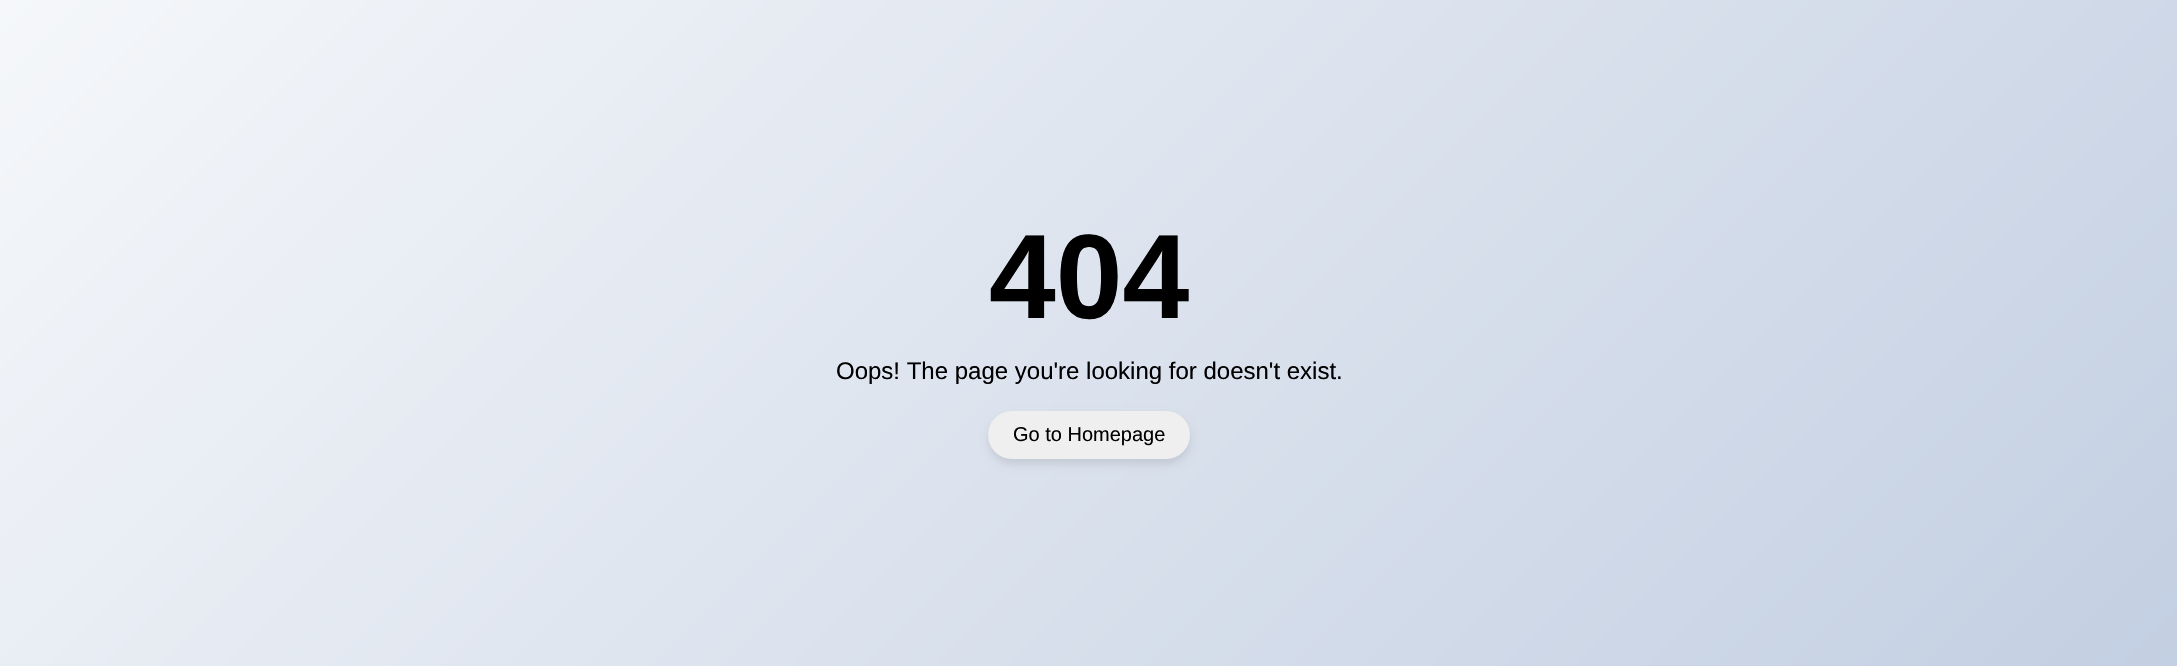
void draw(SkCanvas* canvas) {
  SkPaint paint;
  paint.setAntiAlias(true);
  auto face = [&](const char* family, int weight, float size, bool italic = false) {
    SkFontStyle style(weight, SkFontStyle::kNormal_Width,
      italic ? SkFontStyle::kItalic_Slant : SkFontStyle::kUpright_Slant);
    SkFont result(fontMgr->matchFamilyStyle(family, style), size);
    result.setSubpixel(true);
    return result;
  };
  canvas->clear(0xffffffff);
  {
    const SkColor colors[] = {0xfff5f7fa, 0xffc3cfe2};
    const float stops[] = {0, 1};
    const SkPoint ends[] = {{378, -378}, {1800, 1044}};
    paint.setShader(SkGradientShader::MakeLinear(ends, colors, stops, 2, SkTileMode::kClamp));
    paint.setAlpha(255);
  }
  canvas->drawRect(SkRect::MakeXYWH(0, 0, 2177, 666), paint);
  paint.setShader(nullptr);
  paint.setColor(0x1a000000);
  paint.setMaskFilter(SkMaskFilter::MakeBlur(kNormal_SkBlurStyle, 4));
  canvas->drawRoundRect(SkRect::MakeXYWH(988, 416, 202, 48), 24, 24, paint);
  paint.setMaskFilter(nullptr);
  paint.setColor(0xffefefef);
  canvas->drawRoundRect(SkRect::MakeXYWH(988, 411, 202, 48), 24, 24, paint);
  auto f0 = face("Liberation Sans", 700, 120);
  paint.setColor(0xff000000);
  canvas->drawString("404", 989, 318, f0, paint);
  auto f1 = face("Liberation Sans", 400, 24);
  canvas->drawString("Oops! The page you're looking for doesn't exist.", 836, 379, f1, paint);
  auto f2 = face("Liberation Sans", 400, 20);
  canvas->drawString("Go to Homepage", 1013, 441, f2, paint);
}
